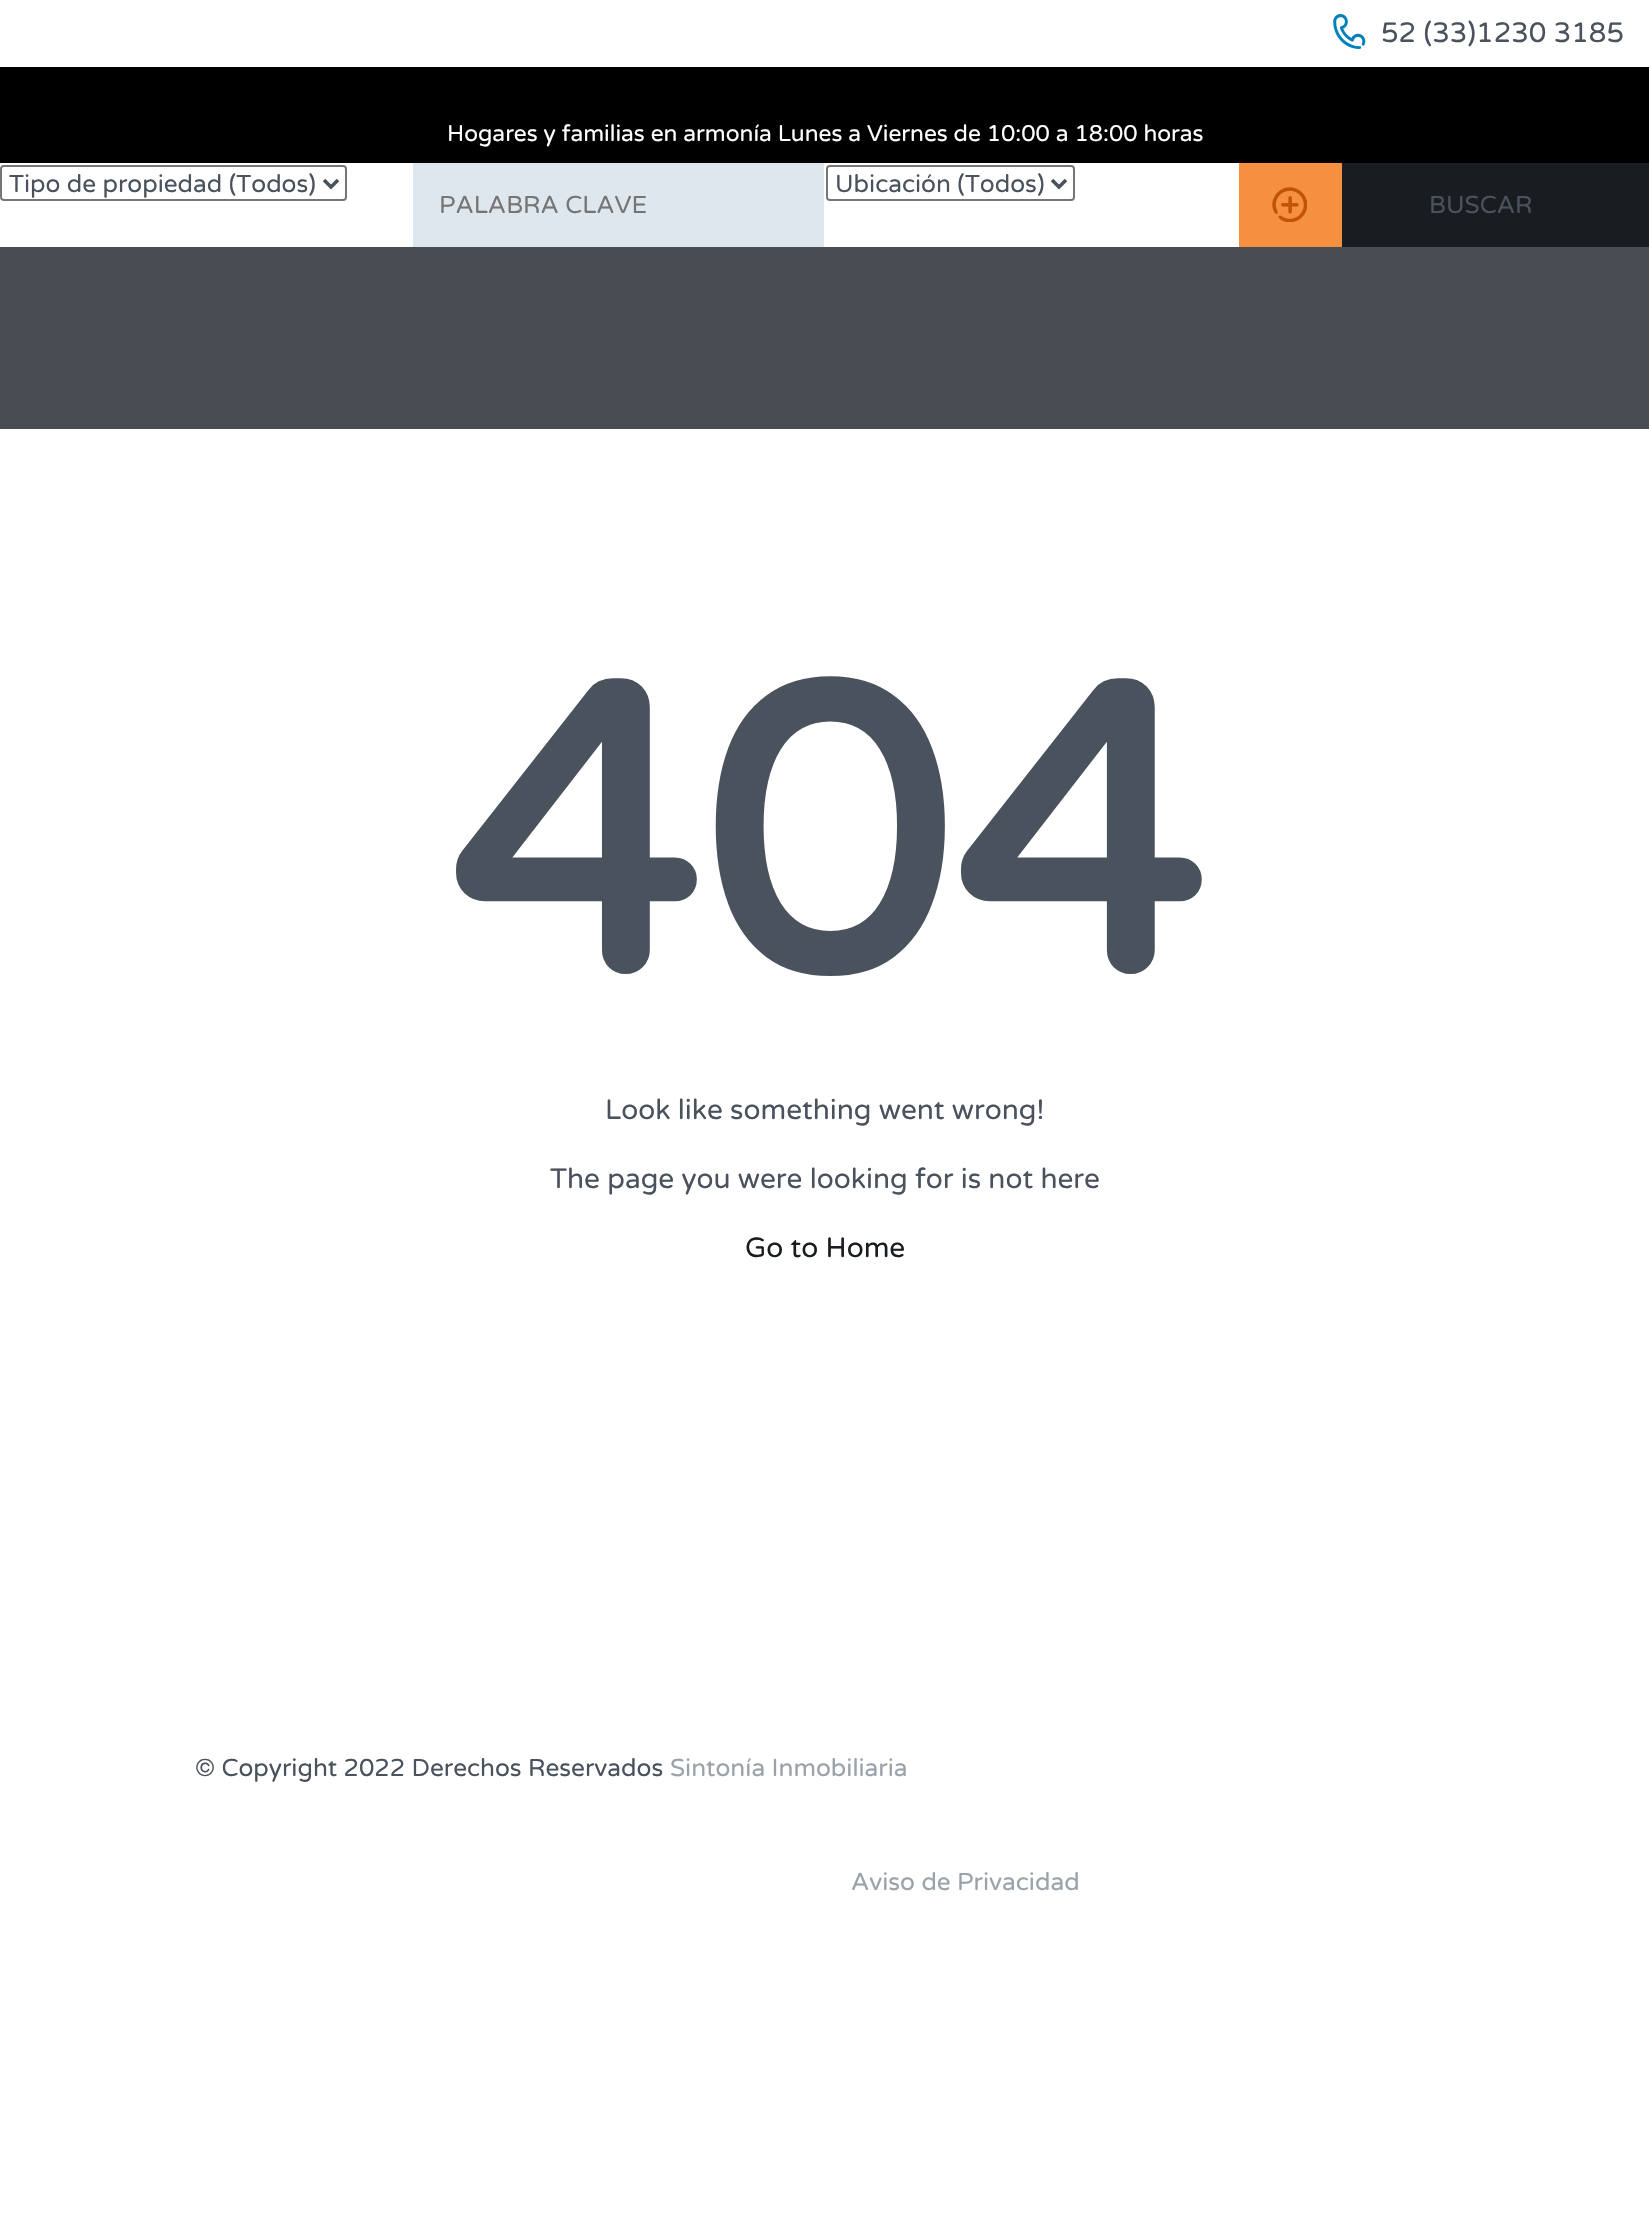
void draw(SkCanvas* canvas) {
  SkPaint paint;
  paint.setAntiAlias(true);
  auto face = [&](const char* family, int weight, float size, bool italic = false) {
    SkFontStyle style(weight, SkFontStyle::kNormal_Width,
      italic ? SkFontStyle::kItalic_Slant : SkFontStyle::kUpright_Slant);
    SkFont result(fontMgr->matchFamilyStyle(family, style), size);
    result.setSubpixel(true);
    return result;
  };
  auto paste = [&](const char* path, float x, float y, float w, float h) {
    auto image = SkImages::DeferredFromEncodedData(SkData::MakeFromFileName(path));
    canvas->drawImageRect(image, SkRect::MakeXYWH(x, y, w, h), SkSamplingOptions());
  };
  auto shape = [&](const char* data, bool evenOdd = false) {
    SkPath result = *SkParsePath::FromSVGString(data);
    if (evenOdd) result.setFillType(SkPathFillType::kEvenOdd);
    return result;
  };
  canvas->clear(0xffffffff);
  paste("img/1.png", 1333, 14, 33, 35);
  paint.setColor(0xff000000);
  canvas->drawRect(SkRect::MakeXYWH(0, 67, 1649, 96), paint);
  paint.setStroke(true);
  paint.setStrokeWidth(2);
  paint.setColor(0xff767676);
  canvas->drawRoundRect(SkRect::MakeXYWH(1, 166, 345, 34), 3, 3, paint);
  paint.setStrokeWidth(3.5f);
  paint.setColor(0xff4a525d);
  canvas->drawPath(shape("M324 180L331 187L338 180"), paint);
  paint.setStrokeWidth(2);
  paint.setColor(0xff767676);
  canvas->drawRoundRect(SkRect::MakeXYWH(827, 166, 247, 34), 3, 3, paint);
  paint.setStrokeWidth(3.5f);
  paint.setColor(0xff4a525d);
  canvas->drawPath(shape("M1052 180L1059 187L1066 180"), paint);
  paint.setStroke(false);
  paint.setColor(0xffdfe7ee);
  canvas->drawRect(SkRect::MakeXYWH(413, 163, 411, 84), paint);
  paint.setColor(0xfff4903f);
  canvas->drawRect(SkRect::MakeXYWH(1239, 163, 103, 84), paint);
  paste("img/2.png", 1272, 187, 35, 35);
  paint.setColor(0xff191c20);
  canvas->drawRect(SkRect::MakeXYWH(1342, 163, 307, 84), paint);
  paint.setColor(0xff494c53);
  canvas->drawRect(SkRect::MakeXYWH(0, 247, 1649, 182), paint);
  auto f0 = face("Varela Round", 400, 28);
  paint.setColor(0xff4a525d);
  canvas->drawString("52 (33)1230 3185", 1381, 42, f0, paint);
  auto f1 = face("Varela Round", 400, 22.75f);
  paint.setColor(0xffffffff);
  canvas->drawString("Hogares y familias en armonía Lunes a Viernes de 10:00 a 18:00 horas", 447, 141, f1, paint);
  auto f2 = face("Varela Round", 400, 24.5f);
  paint.setColor(0xff4a525d);
  canvas->drawString("Tipo de propiedad (Todos)", 9, 192, f2, paint);
  canvas->drawString("Ubicación (Todos)", 835, 192, f2, paint);
  paint.setColor(0xff757575);
  canvas->drawString("PALABRA CLAVE", 439, 213, f2, paint);
  paint.setColor(0xff4a525d);
  canvas->drawString("BUSCAR", 1429, 213, f2, paint);
  auto f3 = face("Varela Round", 700, 402);
  canvas->drawString("404", 446, 972, f3, paint);
  canvas->drawString("Look like something went wrong!", 605, 1119, f0, paint);
  canvas->drawString("The page you were looking for is not here", 550, 1188, f0, paint);
  paint.setColor(0xff191c20);
  canvas->drawString("Go to Home", 745, 1257, f0, paint);
  paint.setColor(0xff4a525d);
  canvas->drawString("© Copyright 2022 Derechos Reservados", 195, 1776, f2, paint);
  paint.setColor(0xff9aa2aa);
  canvas->drawString("Sintonía Inmobiliaria", 670, 1776, f2, paint);
  canvas->drawString("Aviso de Privacidad", 851, 1890, f2, paint);
}
